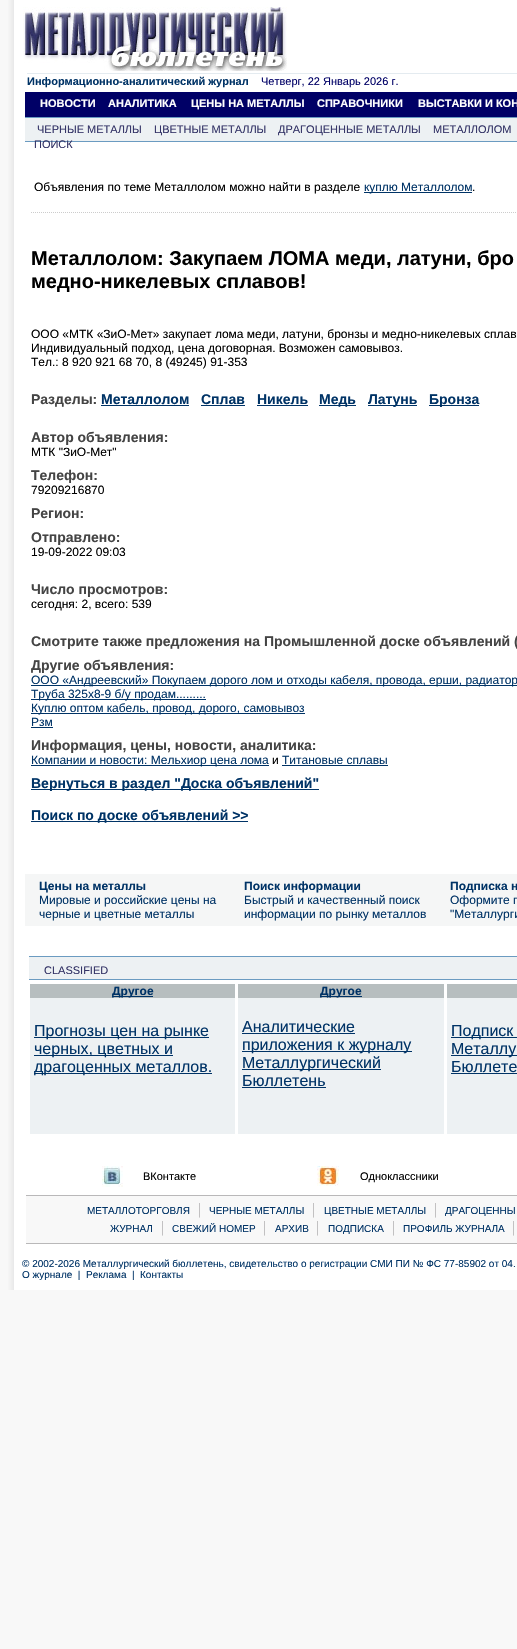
void draw(SkCanvas* canvas) {
  SkPaint paint;
  paint.setAntiAlias(true);
  auto face = [&](const char* family, int weight, float size, bool italic = false) {
    SkFontStyle style(weight, SkFontStyle::kNormal_Width,
      italic ? SkFontStyle::kItalic_Slant : SkFontStyle::kUpright_Slant);
    SkFont result(fontMgr->matchFamilyStyle(family, style), size);
    result.setSubpixel(true);
    return result;
  };
  auto paste = [&](const char* path, float x, float y, float w, float h) {
    auto image = SkImages::DeferredFromEncodedData(SkData::MakeFromFileName(path));
    canvas->drawImageRect(image, SkRect::MakeXYWH(x, y, w, h), SkSamplingOptions());
  };
  canvas->clear(0xfff8f8f8);
  paint.setColor(0xffffffff);
  canvas->drawRect(SkRect::MakeXYWH(14, 0, 503, 1290), paint);
  paste("img/1.png", 8, 0, 6, 1290);
  paste("img/2.png", 23, 7, 264, 64);
  {
    const struct { float x, y, w, h; SkColor color; } items[] = {
      {27, 73, 490, 1, 0xffe4ebf0},
      {25, 92, 492, 25, 0xff000066},
      {25, 118, 492, 23, 0xffedf1f3},
      {25, 117, 492, 1, 0xff6b9bc1},
      {25, 141, 492, 1, 0xff6b9bc1},
      {364, 192, 108, 1, 0xff003366},
    };
    for (auto [x, y, w, h, color] : items) {
      paint.setColor(color);
      canvas->drawRect(SkRect::MakeXYWH(x, y, w, h), paint);
    }
  }
  paste("img/3.png", 31, 212, 485, 1);
  {
    const struct { float x, y, w, h; SkColor color; } items[] = {
      {101, 405, 88, 1, 0xff003366},
      {201, 405, 44, 1, 0xff003366},
      {257, 405, 51, 1, 0xff003366},
      {319, 405, 37, 1, 0xff003366},
      {368, 405, 49, 1, 0xff003366},
      {429, 405, 50, 1, 0xff003366},
      {31, 685, 486, 1, 0xff003366},
      {31, 699, 175, 1, 0xff003366},
      {31, 713, 274, 1, 0xff003366},
      {31, 727, 22, 1, 0xff003366},
      {31, 765, 238, 1, 0xff003366},
      {282, 765, 106, 1, 0xff003366},
      {31, 789, 288, 1, 0xff003366},
      {31, 821, 217, 1, 0xff003366},
      {25, 874, 492, 52, 0xfff5f6f6},
      {29, 957, 488, 22, 0xffedf1f3},
      {29, 956, 488, 1, 0xff6b9bc1},
      {29, 979, 488, 1, 0xff6b9bc1},
      {30, 998, 205, 136, 0xffedf1f3},
      {30, 984, 205, 14, 0xffb7bebf},
      {112, 996, 41, 1, 0xff003366},
      {34, 1037, 175, 1, 0xff003366},
      {34, 1055, 139, 1, 0xff003366},
      {34, 1073, 178, 1, 0xff003366},
      {238, 998, 206, 136, 0xffedf1f3},
      {238, 984, 206, 14, 0xffb7bebf},
      {320, 996, 42, 1, 0xff003366},
      {242, 1033, 113, 1, 0xff003366},
      {242, 1051, 170, 1, 0xff003366},
      {242, 1069, 139, 1, 0xff003366},
      {242, 1087, 84, 1, 0xff003366},
      {447, 998, 70, 136, 0xffedf1f3},
      {447, 984, 70, 14, 0xffb7bebf},
      {451, 1037, 66, 1, 0xff003366},
      {451, 1055, 66, 1, 0xff003366},
      {451, 1073, 66, 1, 0xff003366},
    };
    for (auto [x, y, w, h, color] : items) {
      paint.setColor(color);
      canvas->drawRect(SkRect::MakeXYWH(x, y, w, h), paint);
    }
  }
  paste("img/4.png", 102, 1166, 21, 21);
  paste("img/5.png", 317, 1166, 22, 20);
  {
    const struct { float x, y, w, h; SkColor color; } items[] = {
      {26, 1196, 491, 47, 0xfff8f8f8},
      {26, 1195, 491, 1, 0xffb9b8b9},
      {26, 1243, 491, 1, 0xffb9b8b9},
    };
    for (auto [x, y, w, h, color] : items) {
      paint.setColor(color);
      canvas->drawRect(SkRect::MakeXYWH(x, y, w, h), paint);
    }
  }
  auto f0 = face("Liberation Sans", 700, 11);
  paint.setColor(0xff003366);
  canvas->drawString("Информационно-аналитический журнал", 27, 85, f0, paint);
  auto f1 = face("Liberation Sans", 400, 11);
  paint.setColor(0xff000066);
  canvas->drawString("Четверг, 22 Январь 2026 г.", 261, 85, f1, paint);
  paint.setColor(0xffffffff);
  {
    const struct { const char* s; float x, y; } items[] = {
      {"НОВОСТИ", 40, 107},
      {"АНАЛИТИКА", 108, 107},
      {"ЦЕНЫ НА МЕТАЛЛЫ", 191, 107},
      {"СПРАВОЧНИКИ", 317, 107},
      {"ВЫСТАВКИ И КОН", 418, 107},
    };
    for (auto [s, x, y] : items) {
      canvas->drawString(s, x, y, f0, paint);
    }
  }
  paint.setColor(0xff333366);
  {
    const struct { const char* s; float x, y; } items[] = {
      {"ЧЕРНЫЕ МЕТАЛЛЫ", 37, 133},
      {"ЦВЕТНЫЕ МЕТАЛЛЫ", 154, 133},
      {"ДРАГОЦЕННЫЕ МЕТАЛЛЫ", 278, 133},
      {"МЕТАЛЛОЛОМ", 433, 133},
      {"ПОИСК", 34, 148},
    };
    for (auto [s, x, y] : items) {
      canvas->drawString(s, x, y, f1, paint);
    }
  }
  auto f2 = face("Liberation Sans", 400, 12);
  paint.setColor(0xff000000);
  canvas->drawString("Объявления по теме Металлолом можно найти в разделе", 34, 191, f2, paint);
  paint.setColor(0xff003366);
  canvas->drawString("куплю Металлолом", 364, 191, f2, paint);
  paint.setColor(0xff000000);
  canvas->drawString(".", 472, 191, f2, paint);
  auto f3 = face("Liberation Sans", 700, 20);
  canvas->drawString("Металлолом: Закупаем ЛОМА меди, латуни, бро", 31, 265, f3, paint);
  canvas->drawString("медно-никелевых сплавов!", 31, 288, f3, paint);
  {
    const struct { const char* s; float x, y; } items[] = {
      {"ООО «МТК «ЗиО-Мет» закупает лома меди, латуни, бронзы и медно-никелевых сплав", 31, 338},
      {"Индивидуальный подход, цена договорная. Возможен самовывоз.", 31, 352},
      {"Тел.: 8 920 921 68 70, 8 (49245) 91-353", 31, 366},
    };
    for (auto [s, x, y] : items) {
      canvas->drawString(s, x, y, f2, paint);
    }
  }
  auto f4 = face("Liberation Sans", 700, 14);
  paint.setColor(0xff444444);
  canvas->drawString("Разделы:", 31, 404, f4, paint);
  paint.setColor(0xff003366);
  {
    const struct { const char* s; float x, y; } items[] = {
      {"Металлолом", 101, 404},
      {"Сплав", 201, 404},
      {"Никель", 257, 404},
      {"Медь", 319, 404},
      {"Латунь", 368, 404},
      {"Бронза", 429, 404},
    };
    for (auto [s, x, y] : items) {
      canvas->drawString(s, x, y, f4, paint);
    }
  }
  paint.setColor(0xff444444);
  canvas->drawString("Автор объявления:", 31, 442, f4, paint);
  paint.setColor(0xff000000);
  canvas->drawString("МТК \"ЗиО-Мет\"", 31, 456, f2, paint);
  paint.setColor(0xff444444);
  canvas->drawString("Телефон:", 31, 480, f4, paint);
  paint.setColor(0xff000000);
  canvas->drawString("79209216870", 31, 494, f2, paint);
  paint.setColor(0xff444444);
  canvas->drawString("Регион:", 31, 518, f4, paint);
  canvas->drawString("Отправлено:", 31, 542, f4, paint);
  paint.setColor(0xff000000);
  canvas->drawString("19-09-2022 09:03", 31, 556, f2, paint);
  paint.setColor(0xff444444);
  canvas->drawString("Число просмотров:", 31, 594, f4, paint);
  paint.setColor(0xff000000);
  canvas->drawString("сегодня: 2, всего: 539", 31, 608, f2, paint);
  paint.setColor(0xff444444);
  canvas->drawString("Смотрите также предложения на Промышленной доске объявлений (", 31, 646, f4, paint);
  canvas->drawString("Другие объявления:", 31, 670, f4, paint);
  paint.setColor(0xff003366);
  {
    const struct { const char* s; float x, y; } items[] = {
      {"ООО «Андреевский» Покупаем дорого лом и отходы кабеля, провода, ерши, радиатор", 31, 684},
      {"Труба 325х8-9 б/у продам.........", 31, 698},
      {"Куплю оптом кабель, провод, дорого, самовывоз", 31, 712},
      {"Рзм", 31, 726},
    };
    for (auto [s, x, y] : items) {
      canvas->drawString(s, x, y, f2, paint);
    }
  }
  paint.setColor(0xff444444);
  canvas->drawString("Информация, цены, новости, аналитика:", 31, 750, f4, paint);
  paint.setColor(0xff003366);
  canvas->drawString("Компании и новости: Мельхиор цена лома", 31, 764, f2, paint);
  paint.setColor(0xff000000);
  canvas->drawString("и", 272, 764, f2, paint);
  paint.setColor(0xff003366);
  canvas->drawString("Титановые сплавы", 282, 764, f2, paint);
  canvas->drawString("Вернуться в раздел \"Доска объявлений\"", 31, 788, f4, paint);
  canvas->drawString("Поиск по доске объявлений >>", 31, 820, f4, paint);
  auto f5 = face("Liberation Sans", 700, 12);
  canvas->drawString("Цены на металлы", 39, 890, f5, paint);
  canvas->drawString("Мировые и российские цены на", 39, 904, f2, paint);
  canvas->drawString("черные и цветные металлы", 39, 918, f2, paint);
  canvas->drawString("Поиск информации", 244, 890, f5, paint);
  canvas->drawString("Быстрый и качественный поиск", 244, 904, f2, paint);
  canvas->drawString("информации по рынку металлов", 244, 918, f2, paint);
  canvas->drawString("Подписка н", 450, 890, f5, paint);
  canvas->drawString("Оформите п", 450, 904, f2, paint);
  canvas->drawString("\"Металлурги", 450, 918, f2, paint);
  paint.setColor(0xff333366);
  canvas->drawString("CLASSIFIED", 44, 974, f1, paint);
  paint.setColor(0xff003366);
  canvas->drawString("Другое", 112, 995, f5, paint);
  auto f6 = face("Liberation Sans", 400, 16);
  {
    const struct { const char* s; float x, y; } items[] = {
      {"Прогнозы цен на рынке", 34, 1036},
      {"черных, цветных и", 34, 1054},
      {"драгоценных металлов.", 34, 1072},
    };
    for (auto [s, x, y] : items) {
      canvas->drawString(s, x, y, f6, paint);
    }
  }
  canvas->drawString("Другое", 320, 995, f5, paint);
  {
    const struct { const char* s; float x, y; } items[] = {
      {"Аналитические", 242, 1032},
      {"приложения к журналу", 242, 1050},
      {"Металлургический", 242, 1068},
      {"Бюллетень", 242, 1086},
      {"Подписк", 451, 1036},
      {"Металлу", 451, 1054},
      {"Бюллете", 451, 1072},
    };
    for (auto [s, x, y] : items) {
      canvas->drawString(s, x, y, f6, paint);
    }
  }
  paint.setColor(0xff000000);
  canvas->drawString("ВКонтакте", 143, 1180, f1, paint);
  canvas->drawString("Одноклассники", 360, 1180, f1, paint);
  auto f7 = face("Liberation Sans", 400, 10);
  paint.setColor(0xff003366);
  canvas->drawString("МЕТАЛЛОТОРГОВЛЯ", 87, 1214, f7, paint);
  auto f8 = face("Liberation Serif", 400, 16);
  paint.setColor(0xffb9b8b9);
  canvas->drawString("|", 198, 1214, f8, paint);
  paint.setColor(0xff003366);
  canvas->drawString("ЧЕРНЫЕ МЕТАЛЛЫ", 209, 1214, f7, paint);
  paint.setColor(0xffb9b8b9);
  canvas->drawString("|", 312, 1214, f8, paint);
  paint.setColor(0xff003366);
  canvas->drawString("ЦВЕТНЫЕ МЕТАЛЛЫ", 324, 1214, f7, paint);
  paint.setColor(0xffb9b8b9);
  canvas->drawString("|", 434, 1214, f8, paint);
  paint.setColor(0xff003366);
  canvas->drawString("ДРАГОЦЕННЫ", 445, 1214, f7, paint);
  canvas->drawString("ЖУРНАЛ", 110, 1232, f7, paint);
  paint.setColor(0xffb9b8b9);
  canvas->drawString("|", 161, 1232, f8, paint);
  paint.setColor(0xff003366);
  canvas->drawString("СВЕЖИЙ НОМЕР", 172, 1232, f7, paint);
  paint.setColor(0xffb9b8b9);
  canvas->drawString("|", 263, 1232, f8, paint);
  paint.setColor(0xff003366);
  canvas->drawString("АРХИВ", 275, 1232, f7, paint);
  paint.setColor(0xffb9b8b9);
  canvas->drawString("|", 316, 1232, f8, paint);
  paint.setColor(0xff003366);
  canvas->drawString("ПОДПИСКА", 328, 1232, f7, paint);
  paint.setColor(0xffb9b8b9);
  canvas->drawString("|", 392, 1232, f8, paint);
  paint.setColor(0xff003366);
  canvas->drawString("ПРОФИЛЬ ЖУРНАЛА", 403, 1232, f7, paint);
  paint.setColor(0xffb9b8b9);
  canvas->drawString("|", 512, 1232, f8, paint);
  paint.setColor(0xff003366);
  {
    const struct { const char* s; float x, y; } items[] = {
      {"© 2002-2026 Металлургический бюллетень, свидетельство о регистрации СМИ ПИ № ФС 77-85902 от 04.", 22, 1267},
      {"О журнале  |", 22, 1278},
      {"Реклама  |", 86, 1278},
      {"Контакты", 140, 1278},
    };
    for (auto [s, x, y] : items) {
      canvas->drawString(s, x, y, f7, paint);
    }
  }
}
